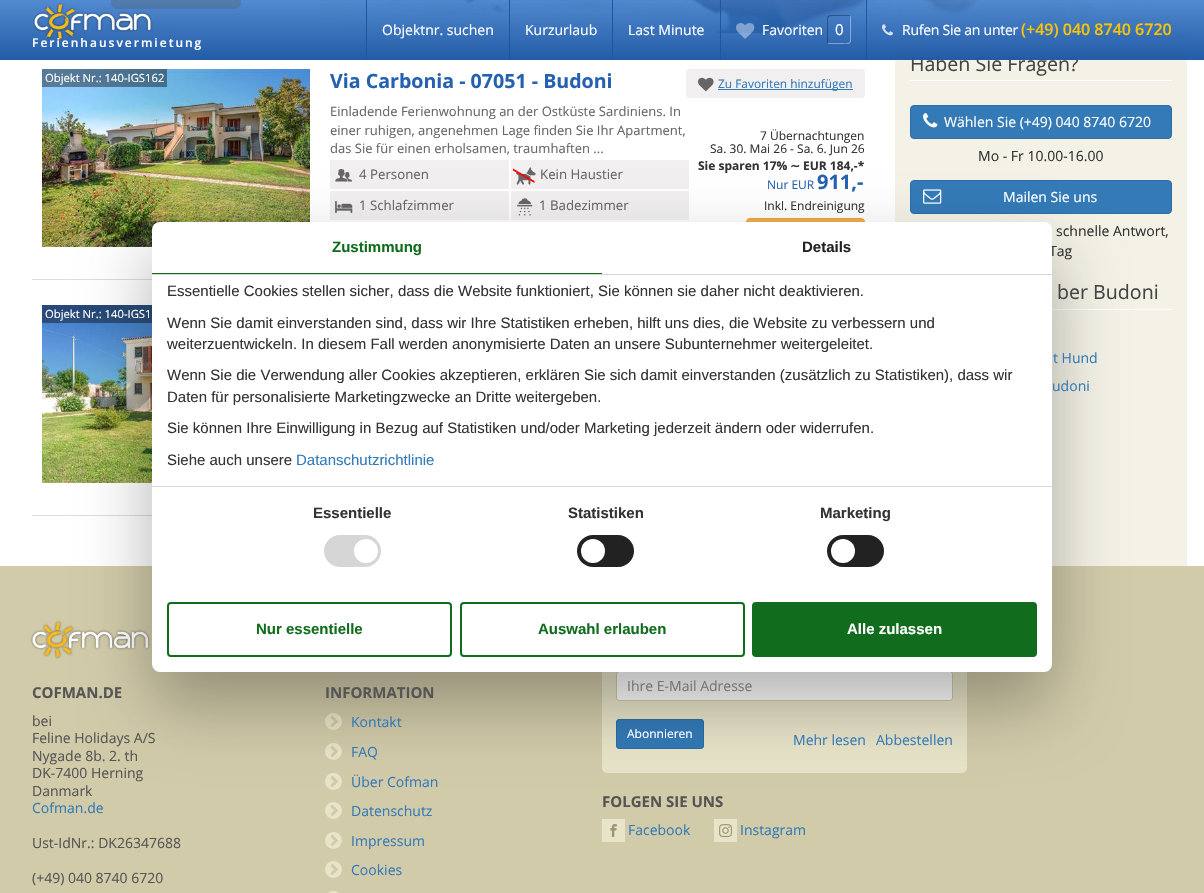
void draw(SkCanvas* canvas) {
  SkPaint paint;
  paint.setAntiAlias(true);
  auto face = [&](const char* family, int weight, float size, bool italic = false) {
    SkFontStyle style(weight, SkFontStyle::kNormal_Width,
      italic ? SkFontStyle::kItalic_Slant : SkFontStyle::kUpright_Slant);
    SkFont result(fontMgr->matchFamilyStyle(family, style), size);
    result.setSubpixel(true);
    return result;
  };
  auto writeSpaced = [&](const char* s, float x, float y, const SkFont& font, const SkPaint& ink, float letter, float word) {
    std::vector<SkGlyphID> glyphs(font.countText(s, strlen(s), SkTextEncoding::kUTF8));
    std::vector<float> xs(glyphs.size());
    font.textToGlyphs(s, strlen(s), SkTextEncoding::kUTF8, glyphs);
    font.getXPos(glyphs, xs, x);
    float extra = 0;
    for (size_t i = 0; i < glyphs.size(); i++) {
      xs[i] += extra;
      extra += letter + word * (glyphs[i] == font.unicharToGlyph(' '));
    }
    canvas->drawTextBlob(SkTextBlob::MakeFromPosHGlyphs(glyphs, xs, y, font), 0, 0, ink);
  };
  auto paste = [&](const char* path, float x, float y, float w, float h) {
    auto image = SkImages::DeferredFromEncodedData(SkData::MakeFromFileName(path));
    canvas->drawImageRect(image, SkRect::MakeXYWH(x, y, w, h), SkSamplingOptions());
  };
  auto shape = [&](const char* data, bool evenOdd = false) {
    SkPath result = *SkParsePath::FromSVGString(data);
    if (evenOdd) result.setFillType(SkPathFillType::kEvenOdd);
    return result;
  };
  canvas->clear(0xffffffff);
  paste("img/4.png", 0, 0, 1204, 33);
  paint.setColor(0xffffffff);
  canvas->drawRoundRect(SkRect::MakeXYWH(32, -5, 288, 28), 5, 5, paint);
  paint.setColor(0xfffa9e04);
  canvas->drawRoundRect(SkRect::MakeXYWH(111.5f, -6.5f, 129, 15), 5.5f, 5.5f, paint);
  paint.setStroke(true);
  paint.setStrokeWidth(1);
  paint.setColor(0xffeea236);
  canvas->drawRoundRect(SkRect::MakeXYWH(111.5f, -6.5f, 129, 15), 5.5f, 5.5f, paint);
  paint.setStroke(false);
  {
    const struct { float x, y, w, h; SkColor color; } items[] = {
      {895, 33, 292, 533, 0xfff4f2e6},
      {32, 43, 848, 1, 0xffdddddd},
      {32, 279, 120, 1, 0xffdddddd},
    };
    for (auto [x, y, w, h, color] : items) {
      paint.setColor(color);
      canvas->drawRect(SkRect::MakeXYWH(x, y, w, h), paint);
    }
  }
  paste("img/5.png", 42, 69, 268, 178);
  paint.setColor(0x66000000);
  canvas->drawRect(SkRect::MakeXYWH(42, 69, 125, 18), paint);
  paint.setColor(0xfff1eff0);
  canvas->drawRect(SkRect::MakeXYWH(330, 160, 179, 29), paint);
  paste("img/6.png", 335, 168, 17, 14);
  canvas->drawRect(SkRect::MakeXYWH(511, 160, 178, 29), paint);
  paste("img/7.png", 516, 167, 20, 18);
  paint.setColor(0xffff0000);
  canvas->drawPath(shape("M513 168.5L534.5 181V183L513 170.5Z"), paint);
  paint.setColor(0xfff1eff0);
  canvas->drawRect(SkRect::MakeXYWH(330, 191, 179, 29), paint);
  paste("img/8.png", 335, 201, 18, 12);
  canvas->drawRect(SkRect::MakeXYWH(511, 191, 178, 29), paint);
  paste("img/9.png", 517, 198, 16, 18);
  canvas->drawRoundRect(SkRect::MakeXYWH(686, 69, 179, 29), 4, 4, paint);
  paste("img/10.png", 698, 77, 16, 15);
  paint.setColor(0xff337ab7);
  canvas->drawRect(SkRect::MakeXYWH(718, 89, 135, 1), paint);
  paint.setColor(0xfff0ad4e);
  canvas->drawRoundRect(SkRect::MakeXYWH(746.5f, 218.5f, 118, 33), 3.5f, 3.5f, paint);
  paint.setStroke(true);
  paint.setColor(0xffeea236);
  canvas->drawRoundRect(SkRect::MakeXYWH(746.5f, 218.5f, 118, 33), 3.5f, 3.5f, paint);
  paint.setStroke(false);
  paint.setColor(0xffdddddd);
  canvas->drawRect(SkRect::MakeXYWH(32, 515, 120, 1), paint);
  paste("img/11.png", 42, 305, 110, 178);
  paint.setColor(0x66000000);
  canvas->drawRect(SkRect::MakeXYWH(42, 305, 110, 18), paint);
  paint.setColor(0xffffffff);
  canvas->drawRect(SkRect::MakeXYWH(910, 80, 262, 1), paint);
  paint.setColor(0xff337ab7);
  canvas->drawRoundRect(SkRect::MakeXYWH(910.5f, 105.5f, 261, 33), 3.5f, 3.5f, paint);
  paint.setStroke(true);
  paint.setColor(0xff2e6da4);
  canvas->drawRoundRect(SkRect::MakeXYWH(910.5f, 105.5f, 261, 33), 3.5f, 3.5f, paint);
  paste("img/12.png", 923, 113, 15, 15);
  paint.setStroke(false);
  paint.setColor(0xff337ab7);
  canvas->drawRoundRect(SkRect::MakeXYWH(910.5f, 180.5f, 261, 33), 3.5f, 3.5f, paint);
  paint.setStroke(true);
  paint.setColor(0xff2e6da4);
  canvas->drawRoundRect(SkRect::MakeXYWH(910.5f, 180.5f, 261, 33), 3.5f, 3.5f, paint);
  paste("img/13.png", 923, 189, 19, 15);
  paint.setStroke(false);
  paint.setColor(0xffffffff);
  canvas->drawRect(SkRect::MakeXYWH(1052, 309, 120, 1), paint);
  paint.setColor(0xffd2cbaa);
  canvas->drawRect(SkRect::MakeXYWH(0, 566, 1204, 327), paint);
  paste("img/14.png", 30, 620, 120, 39);
  paste("img/15.png", 325, 713, 17, 17);
  paste("img/15.png", 325, 743, 17, 17);
  paste("img/15.png", 325, 773, 17, 17);
  paste("img/15.png", 325, 802, 17, 17);
  paste("img/15.png", 325, 832, 17, 17);
  paste("img/15.png", 325, 861, 17, 17);
  paste("img/16.png", 328, 891, 11, 2);
  paint.setColor(0xffe8e4c9);
  canvas->drawRoundRect(SkRect::MakeXYWH(602, 606, 365, 167), 5, 5, paint);
  paint.setColor(0xffffffff);
  canvas->drawRoundRect(SkRect::MakeXYWH(616.5f, 671.5f, 336, 29), 2.5f, 2.5f, paint);
  paint.setStroke(true);
  paint.setColor(0xffd2cbaa);
  canvas->drawRoundRect(SkRect::MakeXYWH(616.5f, 671.5f, 336, 29), 2.5f, 2.5f, paint);
  paint.setStroke(false);
  paint.setColor(0xff337ab7);
  canvas->drawRoundRect(SkRect::MakeXYWH(616.5f, 719.5f, 87, 29), 2.5f, 2.5f, paint);
  paint.setStroke(true);
  paint.setColor(0xff2e6da4);
  canvas->drawRoundRect(SkRect::MakeXYWH(616.5f, 719.5f, 87, 29), 2.5f, 2.5f, paint);
  paint.setStroke(false);
  paint.setColor(0xffe8e4c9);
  canvas->drawRect(SkRect::MakeXYWH(602, 819, 23, 23), paint);
  paste("img/17.png", 610, 824, 7, 13);
  canvas->drawRect(SkRect::MakeXYWH(714, 819, 23, 23), paint);
  paste("img/18.png", 719, 824, 13, 14);
  paint.setColor(0x4d000000);
  paint.setMaskFilter(SkMaskFilter::MakeBlur(kNormal_SkBlurStyle, 34));
  canvas->drawRoundRect(SkRect::MakeXYWH(152, 254, 900, 450), 8, 8, paint);
  paint.setMaskFilter(nullptr);
  auto f0 = face("Open Sans", 400, 11.25f);
  paint.setColor(0xffffffff);
  canvas->drawString("Objekt Nr.: 140-IGS162", 45, 82, f0, paint);
  auto f1 = face("Open Sans", 700, 19.6f);
  paint.setColor(0xff2461b0);
  canvas->drawString("Via Carbonia - 07051 - Budoni", 330, 88, f1, paint);
  auto f2 = face("Open Sans", 400, 13);
  paint.setColor(0xff666666);
  {
    const struct { const char* s; float x, y; } items[] = {
      {"Einladende Ferienwohnung an der Ostküste Sardiniens. In", 330, 116},
      {"einer ruhigen, angenehmen Lage finden Sie Ihr Apartment,", 330, 135},
      {"das Sie für einen erholsamen, traumhaften ...", 330, 153},
    };
    for (auto [s, x, y] : items) {
      canvas->drawString(s, x, y, f2, paint);
    }
  }
  auto f3 = face("Open Sans", 400, 13.25f);
  {
    const struct { const char* s; float x, y; } items[] = {
      {"4 Personen", 359, 179},
      {"Kein Haustier", 540, 179},
      {"1 Schlafzimmer", 359, 210},
      {"1 Badezimmer", 539, 210},
    };
    for (auto [s, x, y] : items) {
      canvas->drawString(s, x, y, f3, paint);
    }
  }
  auto f4 = face("Open Sans", 400, 11.9f);
  paint.setColor(0xff337ab7);
  canvas->drawString("Zu Favoriten hinzufügen", 718, 88, f4, paint);
  auto f5 = face("Open Sans", 400, 12);
  paint.setColor(0xff333333);
  canvas->drawString("7 Übernachtungen", 760, 140, f5, paint);
  canvas->drawString("Sa. 30. Mai 26 - Sa. 6. Jun 26", 710, 153, f5, paint);
  auto f6 = face("Open Sans", 700, 12);
  canvas->drawString("Sie sparen 17%", 698, 170, f6, paint);
  auto f7 = face("DejaVu Sans", 700, 12);
  canvas->drawString("∼", 790, 170, f7, paint);
  canvas->drawString("EUR 184,-*", 803, 170, f6, paint);
  paint.setColor(0xff2461b0);
  canvas->drawString("Nur EUR", 767, 189, f5, paint);
  auto f8 = face("Open Sans", 700, 20);
  canvas->drawString("911,-", 817, 189, f8, paint);
  paint.setColor(0xff333333);
  canvas->drawString("Inkl. Endreinigung", 764, 210, f5, paint);
  paint.setColor(0xffffffff);
  canvas->drawString("Objekt Nr.: 140-IGS1", 45, 318, f0, paint);
  auto f9 = face("Open Sans", 400, 19.6f);
  paint.setColor(0xff444444);
  canvas->drawString("Haben Sie Fragen?", 910, 71, f9, paint);
  paint.setColor(0xd93475c9);
  canvas->drawRect(SkRect::MakeXYWH(0, 0, 1204, 60), paint);
  {
    const SkColor colors[] = {0x001a539e, 0xd91a539e};
    const float stops[] = {0, 1};
    const SkPoint ends[] = {{602, 0}, {602, 60}};
    paint.setShader(SkGradientShader::MakeLinear(ends, colors, stops, 2, SkTileMode::kClamp));
    paint.setAlpha(255);
  }
  canvas->drawRect(SkRect::MakeXYWH(0, 3, 1204, 57), paint);
  paste("img/2.png", 882, 24, 11, 12);
  auto f10 = face("Open Sans", 600, 16);
  paint.setShader(nullptr);
  paint.setColor(0xfffac304);
  canvas->drawString("(+49) 040 8740 6720", 1021, 35, f10, paint);
  auto f11 = face("Open Sans", 400, 14);
  paint.setColor(0xffffffff);
  writeSpaced("Rufen Sie an unter", 902, 35, f11, paint, -0.25f, 0);
  paste("img/1.png", 736, 23, 19, 16);
  paint.setColor(0x66ffffff);
  canvas->drawPath(shape("M827.5 43C828 43.5 829 44 830 44H848C849.5 44 851 42.5 851 41V18C851 17 850.5 16 850 15.5V40C850 44.5 844 43 841 43Z"), paint);
  paint.setColor(0x4d000000);
  canvas->drawPath(shape("M831 16H850.5C850 15.5 849 15 848 15H830C828.5 15 827 16.5 827 18V41C827 42 827.5 43 828 43.5V23C828 20 827 16 831 16Z"), paint);
  auto f12 = face("Open Sans", 400, 15);
  paint.setColor(0xffffffff);
  canvas->drawString("0", 835, 35, f12, paint);
  canvas->drawString("Favoriten", 762, 35, f11, paint);
  paint.setColor(0xff1f569d);
  canvas->drawRect(SkRect::MakeXYWH(720, 0, 1, 59), paint);
  canvas->drawRect(SkRect::MakeXYWH(866, 0, 1, 59), paint);
  paint.setColor(0xffffffff);
  canvas->drawString("Last Minute", 628, 35, f11, paint);
  paint.setColor(0xff1f569d);
  canvas->drawRect(SkRect::MakeXYWH(612, 0, 1, 59), paint);
  paint.setColor(0xffffffff);
  canvas->drawString("Kurzurlaub", 525, 35, f11, paint);
  paint.setColor(0xff1f569d);
  canvas->drawRect(SkRect::MakeXYWH(509, 0, 1, 59), paint);
  paint.setColor(0xffffffff);
  canvas->drawString("Objektnr. suchen", 382, 35, f11, paint);
  paint.setColor(0xff1f569d);
  canvas->drawRect(SkRect::MakeXYWH(366, 0, 1, 59), paint);
  paste("img/3.png", 32, 2, 121, 39);
  auto f13 = face("Open Sans", 600, 12);
  paint.setColor(0xffffffff);
  writeSpaced("Ferienhausvermietung", 32, 47, f13, paint, 2, 0);
  canvas->drawString("Wählen Sie (+49) 040 8740 6720", 944, 127, f11, paint);
  paint.setColor(0xff333333);
  canvas->drawString("Mo - Fr 10.00-16.00", 978, 161, f11, paint);
  paint.setColor(0xffffffff);
  canvas->drawString("Mailen Sie uns", 1003, 202, f11, paint);
  paint.setColor(0xff333333);
  canvas->drawString("schnelle Antwort,", 1056, 236, f11, paint);
  canvas->drawString("Tag", 1049, 256, f11, paint);
  paint.setColor(0xff444444);
  canvas->drawString("ber Budoni", 1057, 299, f9, paint);
  paint.setColor(0xff337ab7);
  canvas->drawString("t Hund", 1053, 363, f11, paint);
  canvas->drawString("udoni", 1052, 391, f11, paint);
  auto f14 = face("Open Sans", 700, 15);
  paint.setColor(0xff555555);
  canvas->drawString("COFMAN.DE", 32, 698, f14, paint);
  {
    const struct { const char* s; float x, y; } items[] = {
      {"bei", 32, 726},
      {"Feline Holidays A/S", 32, 743},
      {"Nygade 8b. 2. th", 32, 761},
      {"DK-7400 Herning", 32, 778},
      {"Danmark", 32, 796},
    };
    for (auto [s, x, y] : items) {
      canvas->drawString(s, x, y, f11, paint);
    }
  }
  paint.setColor(0xff337ab7);
  canvas->drawString("Cofman.de", 32, 813, f11, paint);
  paint.setColor(0xff555555);
  canvas->drawString("Ust-IdNr.: DK26347688", 32, 848, f11, paint);
  canvas->drawString("(+49) 040 8740 6720", 32, 883, f11, paint);
  canvas->drawString("INFORMATION", 325, 698, f14, paint);
  paint.setColor(0xff337ab7);
  {
    const struct { const char* s; float x, y; } items[] = {
      {"Kontakt", 351, 727},
      {"FAQ", 351, 757},
      {"Über Cofman", 351, 787},
      {"Datenschutz", 351, 816},
      {"Impressum", 351, 846},
      {"Cookies", 351, 875},
    };
    for (auto [s, x, y] : items) {
      canvas->drawString(s, x, y, f11, paint);
    }
  }
  paint.setColor(0xff757575);
  canvas->drawString("Ihre E-Mail Adresse", 627, 691, f11, paint);
  paint.setColor(0xffffffff);
  canvas->drawString("Abonnieren", 627, 738, f5, paint);
  paint.setColor(0xff337ab7);
  canvas->drawString("Mehr lesen", 793, 745, f11, paint);
  canvas->drawString("Abbestellen", 876, 745, f11, paint);
  paint.setColor(0xff555555);
  canvas->drawString("FOLGEN SIE UNS", 602, 807, f14, paint);
  paint.setColor(0xff337ab7);
  canvas->drawString("Facebook", 628, 835, f11, paint);
  canvas->drawString("Instagram", 740, 835, f11, paint);
  paint.setColor(0xffffffff);
  canvas->drawRoundRect(SkRect::MakeXYWH(152, 222, 900, 450), 8, 8, paint);
  paint.setColor(0xffd6d6d6);
  canvas->drawRect(SkRect::MakeXYWH(152, 274, 900, 1), paint);
  paint.setColor(0xff116d1d);
  canvas->drawRect(SkRect::MakeXYWH(152, 273, 450, 1), paint);
  auto f15 = face("Liberation Sans", 700, 15);
  canvas->drawString("Zustimmung", 332, 252, f15, paint);
  paint.setColor(0xff222222);
  canvas->drawString("Details", 802, 252, f15, paint);
  paint.setColor(0xffd6d6d6);
  canvas->drawRect(SkRect::MakeXYWH(152, 486, 900, 1), paint);
  auto f16 = face("Liberation Sans", 400, 15);
  paint.setColor(0xff333333);
  {
    const struct { const char* s; float x, y; } items[] = {
      {"Essentielle Cookies stellen sicher, dass die Website funktioniert, Sie können sie daher nicht deaktivieren.", 167, 296},
      {"Wenn Sie damit einverstanden sind, dass wir Ihre Statistiken erheben, hilft uns dies, die Website zu verbessern und", 167, 328},
      {"weiterzuentwickeln. In diesem Fall werden anonymisierte Daten an unsere Subunternehmer weitergeleitet.", 167, 349},
      {"Wenn Sie die Verwendung aller Cookies akzeptieren, erklären Sie sich damit einverstanden (zusätzlich zu Statistiken), dass wir", 167, 380},
      {"Daten für personalisierte Marketingzwecke an Dritte weitergeben.", 167, 402},
      {"Sie können Ihre Einwilligung in Bezug auf Statistiken und/oder Marketing jederzeit ändern oder widerrufen.", 167, 433},
      {"Siehe auch unsere", 167, 465},
    };
    for (auto [s, x, y] : items) {
      canvas->drawString(s, x, y, f16, paint);
    }
  }
  paint.setColor(0xff337ab7);
  canvas->drawString("Datanschutzrichtlinie", 296, 465, f16, paint);
  paint.setColor(0xff333333);
  canvas->drawString("Essentielle", 313, 518, f15, paint);
  paint.setColor(0xffd6d6d6);
  canvas->drawRoundRect(SkRect::MakeXYWH(324, 535, 57, 32), 16, 16, paint);
  paint.setColor(0xffffffff);
  canvas->drawCircle(366, 551, 12, paint);
  paint.setColor(0xff333333);
  canvas->drawString("Statistiken", 568, 518, f15, paint);
  paint.setColor(0xff222222);
  canvas->drawRoundRect(SkRect::MakeXYWH(577, 535, 57, 32), 16, 16, paint);
  paint.setColor(0xffffffff);
  canvas->drawCircle(593, 551, 12, paint);
  paint.setColor(0xff333333);
  canvas->drawString("Marketing", 820, 518, f15, paint);
  paint.setColor(0xff222222);
  canvas->drawRoundRect(SkRect::MakeXYWH(827, 535, 57, 32), 16, 16, paint);
  paint.setColor(0xffffffff);
  canvas->drawCircle(843, 551, 12, paint);
  paint.setStroke(true);
  paint.setStrokeWidth(2);
  paint.setColor(0xff116d1d);
  canvas->drawRoundRect(SkRect::MakeXYWH(168, 603, 283, 53), 3, 3, paint);
  paint.setStroke(false);
  canvas->drawString("Nur essentielle", 256, 634, f15, paint);
  paint.setStroke(true);
  canvas->drawRoundRect(SkRect::MakeXYWH(461, 603, 283, 53), 3, 3, paint);
  paint.setStroke(false);
  canvas->drawString("Auswahl erlauben", 538, 634, f15, paint);
  canvas->drawRoundRect(SkRect::MakeXYWH(753, 603, 283, 53), 3, 3, paint);
  paint.setStroke(true);
  canvas->drawRoundRect(SkRect::MakeXYWH(753, 603, 283, 53), 3, 3, paint);
  paint.setStroke(false);
  paint.setColor(0xffffffff);
  canvas->drawString("Alle zulassen", 847, 634, f15, paint);
}
